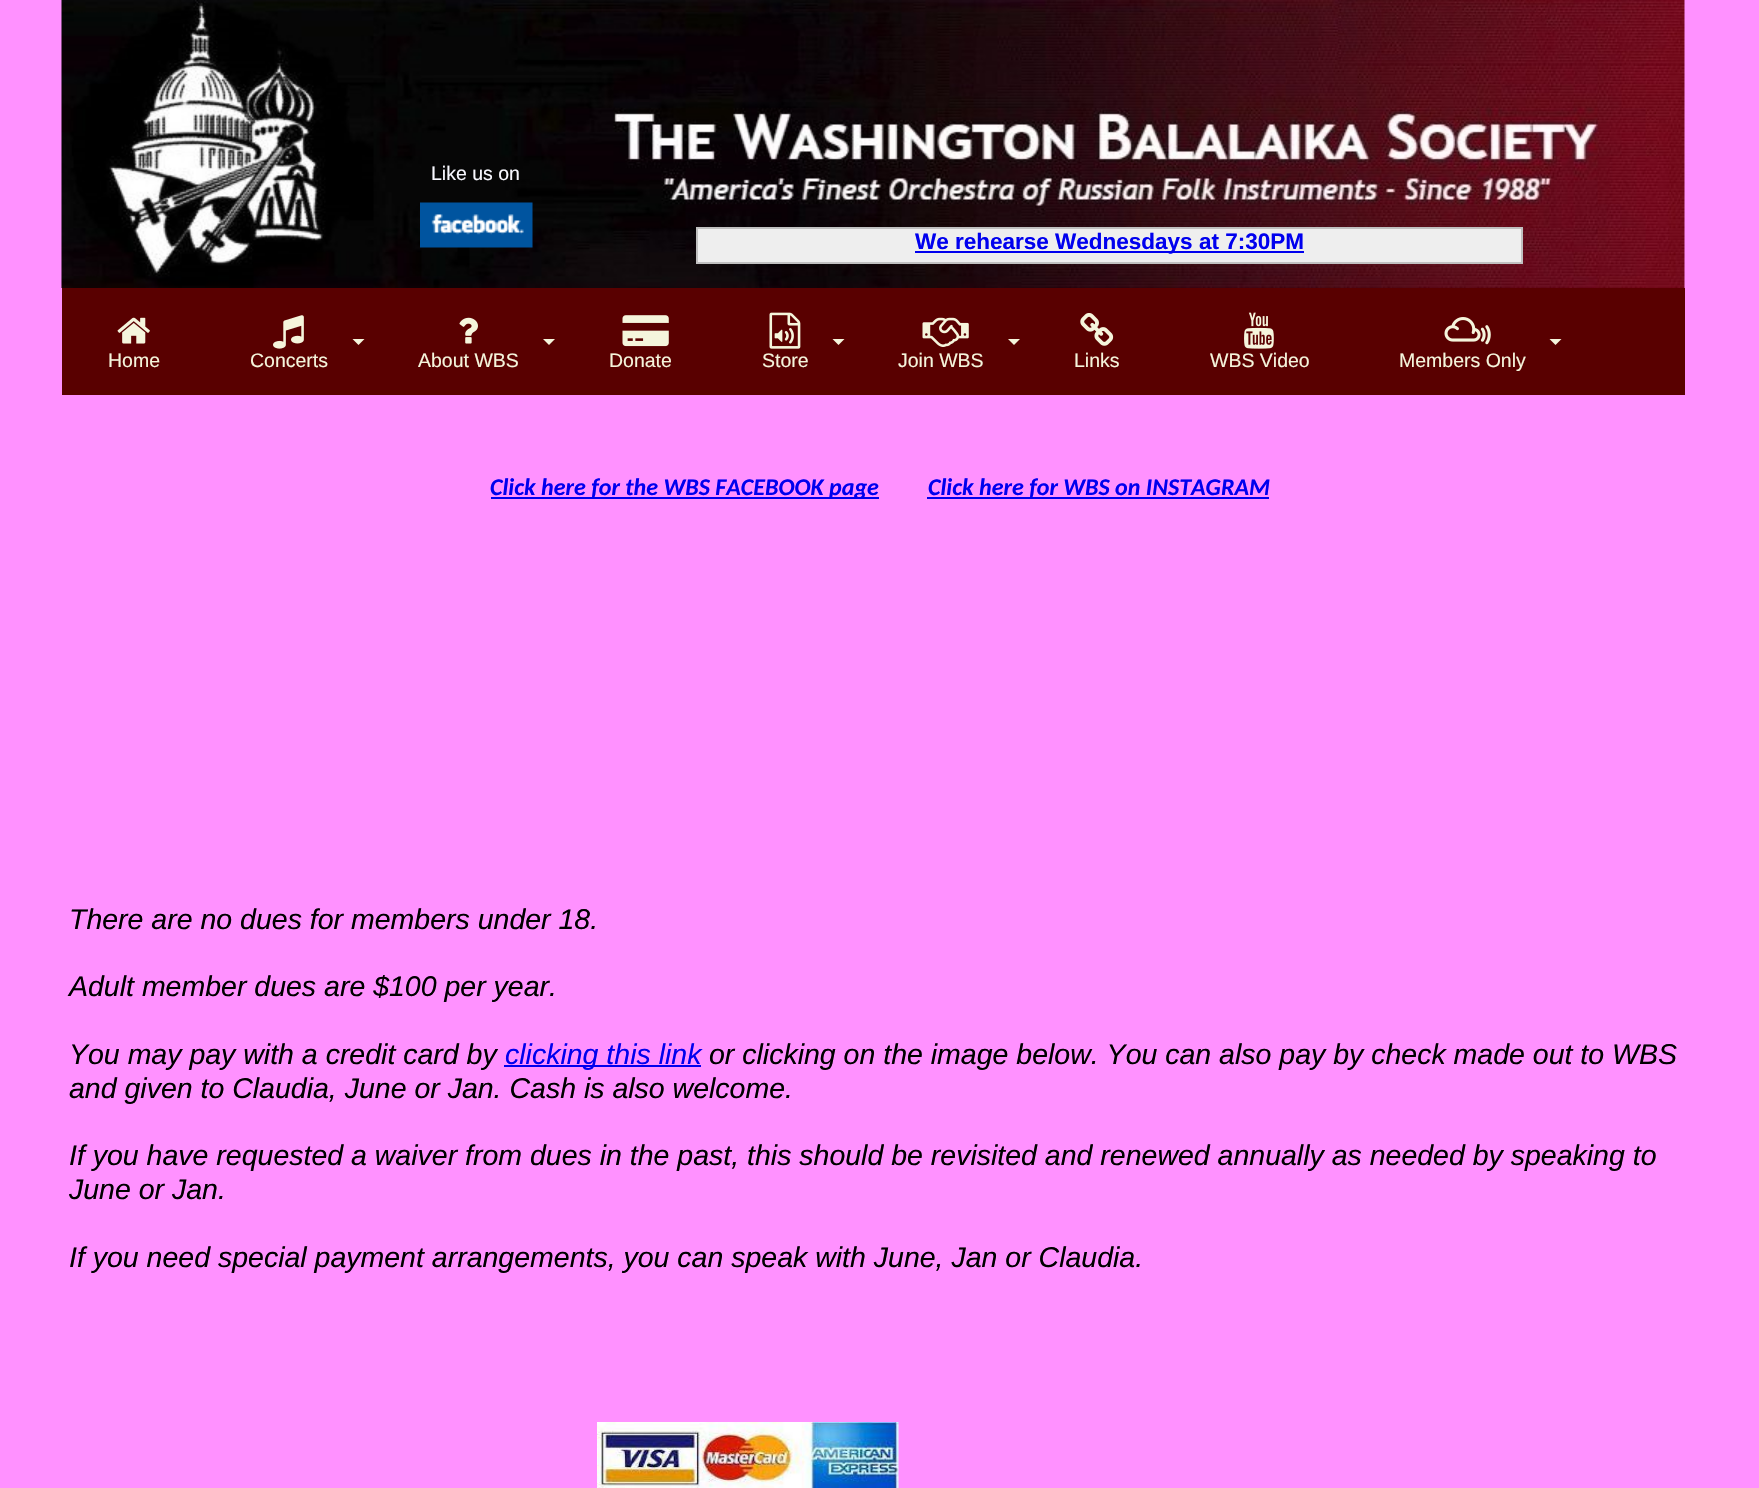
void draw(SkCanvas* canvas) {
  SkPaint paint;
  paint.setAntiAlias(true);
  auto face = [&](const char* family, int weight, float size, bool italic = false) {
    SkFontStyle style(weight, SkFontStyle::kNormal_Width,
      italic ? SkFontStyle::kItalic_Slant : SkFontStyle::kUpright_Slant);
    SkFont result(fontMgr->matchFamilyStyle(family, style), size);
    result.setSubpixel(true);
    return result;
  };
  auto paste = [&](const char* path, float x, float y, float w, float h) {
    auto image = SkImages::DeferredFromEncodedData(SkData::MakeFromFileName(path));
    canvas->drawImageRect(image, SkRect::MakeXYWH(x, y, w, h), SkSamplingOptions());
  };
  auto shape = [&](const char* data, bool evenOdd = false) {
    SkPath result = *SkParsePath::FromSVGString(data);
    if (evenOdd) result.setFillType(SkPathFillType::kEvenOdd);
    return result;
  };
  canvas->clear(0xffff91ff);
  paste("img/1.png", 61, 0, 1624, 288);
  paste("img/2.png", 420, 202, 113, 46);
  paint.setColor(0xffeeeeee);
  canvas->drawRect(SkRect::MakeXYWH(697, 228, 825, 35), paint);
  paint.setStroke(true);
  paint.setStrokeWidth(2);
  paint.setColor(0xffc0c0c0);
  canvas->drawRect(SkRect::MakeXYWH(697, 228, 825, 35), paint);
  paint.setStroke(false);
  paint.setColor(0xff0000ee);
  canvas->drawRect(SkRect::MakeXYWH(915, 251, 389, 2), paint);
  paint.setStroke(true);
  paint.setColor(0xff590000);
  canvas->drawRect(SkRect::MakeXYWH(63, 289, 1621, 105), paint);
  paint.setStroke(false);
  canvas->drawRect(SkRect::MakeXYWH(64, 290, 1619, 103), paint);
  paste("img/3.png", 117, 317, 33, 27);
  paste("img/4.png", 273, 315, 31, 34);
  paint.setColor(0xfff5f5dc);
  canvas->drawPath(shape("M352.5 339H364.5L358.5 345Z"), paint);
  paste("img/5.png", 459, 317, 19, 27);
  canvas->drawPath(shape("M543 339H555L549 345Z"), paint);
  paste("img/6.png", 622, 315, 47, 32);
  paste("img/7.png", 769, 312, 32, 37);
  canvas->drawPath(shape("M832.5 339H844.5L838.5 345Z"), paint);
  paste("img/8.png", 922, 317, 47, 30);
  canvas->drawPath(shape("M1008 339H1020L1014 345Z"), paint);
  paste("img/9.png", 1080, 313, 34, 33);
  paste("img/10.png", 1244, 312, 30, 37);
  paste("img/11.png", 1444, 317, 47, 28);
  canvas->drawPath(shape("M1549.5 339H1561.5L1555.5 345Z"), paint);
  {
    const struct { float x, y, w, h; SkColor color; } items[] = {
      {491, 497, 388, 2, 0xff0000ee},
      {927, 497, 342, 2, 0xff0000ee},
      {504, 1065, 197, 2, 0xff0000ee},
    };
    for (auto [x, y, w, h, color] : items) {
      paint.setColor(color);
      canvas->drawRect(SkRect::MakeXYWH(x, y, w, h), paint);
    }
  }
  paste("img/12.png", 597, 1422, 302, 66);
  auto f0 = face("Liberation Sans", 400, 19.5f);
  paint.setColor(0xfff8f8ff);
  canvas->drawString("Like us on", 431, 180, f0, paint);
  auto f1 = face("Liberation Sans", 700, 22.5f);
  paint.setColor(0xff0000ee);
  canvas->drawString("We rehearse Wednesdays at 7:30PM", 915, 249, f1, paint);
  paint.setColor(0xfff5f5dc);
  {
    const struct { const char* s; float x, y; } items[] = {
      {"Home", 108, 367},
      {"Concerts", 250, 367},
      {"About WBS", 418, 367},
      {"Donate", 609, 367},
      {"Store", 762, 367},
      {"Join WBS", 898, 367},
      {"Links", 1074, 367},
      {"WBS Video", 1210, 367},
      {"Members Only", 1399, 367},
    };
    for (auto [s, x, y] : items) {
      canvas->drawString(s, x, y, f0, paint);
    }
  }
  auto f2 = face("Carlito", 700, 24, true);
  paint.setColor(0xff0000ee);
  canvas->drawString("Click here for the WBS FACEBOOK page", 490, 495, f2, paint);
  canvas->drawString("Click here for WBS on INSTAGRAM", 928, 495, f2, paint);
  auto f3 = face("Liberation Sans", 400, 28.5f, true);
  paint.setColor(0xff000000);
  {
    const struct { const char* s; float x, y; } items[] = {
      {"There are no dues for members under 18.", 69, 929},
      {"Adult member dues are $100 per year.", 69, 996},
      {"You may pay with a credit card by", 69, 1064},
    };
    for (auto [s, x, y] : items) {
      canvas->drawString(s, x, y, f3, paint);
    }
  }
  paint.setColor(0xff0000ee);
  canvas->drawString("clicking this link", 505, 1064, f3, paint);
  paint.setColor(0xff000000);
  {
    const struct { const char* s; float x, y; } items[] = {
      {"or clicking on the image below. You can also pay by check made out to WBS", 709, 1064},
      {"and given to Claudia, June or Jan. Cash is also welcome.", 69, 1098},
      {"If you have requested a waiver from dues in the past, this should be revisited and renewed annually as needed by speaking to", 69, 1165},
      {"June or Jan.", 69, 1199},
      {"If you need special payment arrangements, you can speak with June, Jan or Claudia.", 69, 1267},
    };
    for (auto [s, x, y] : items) {
      canvas->drawString(s, x, y, f3, paint);
    }
  }
}
